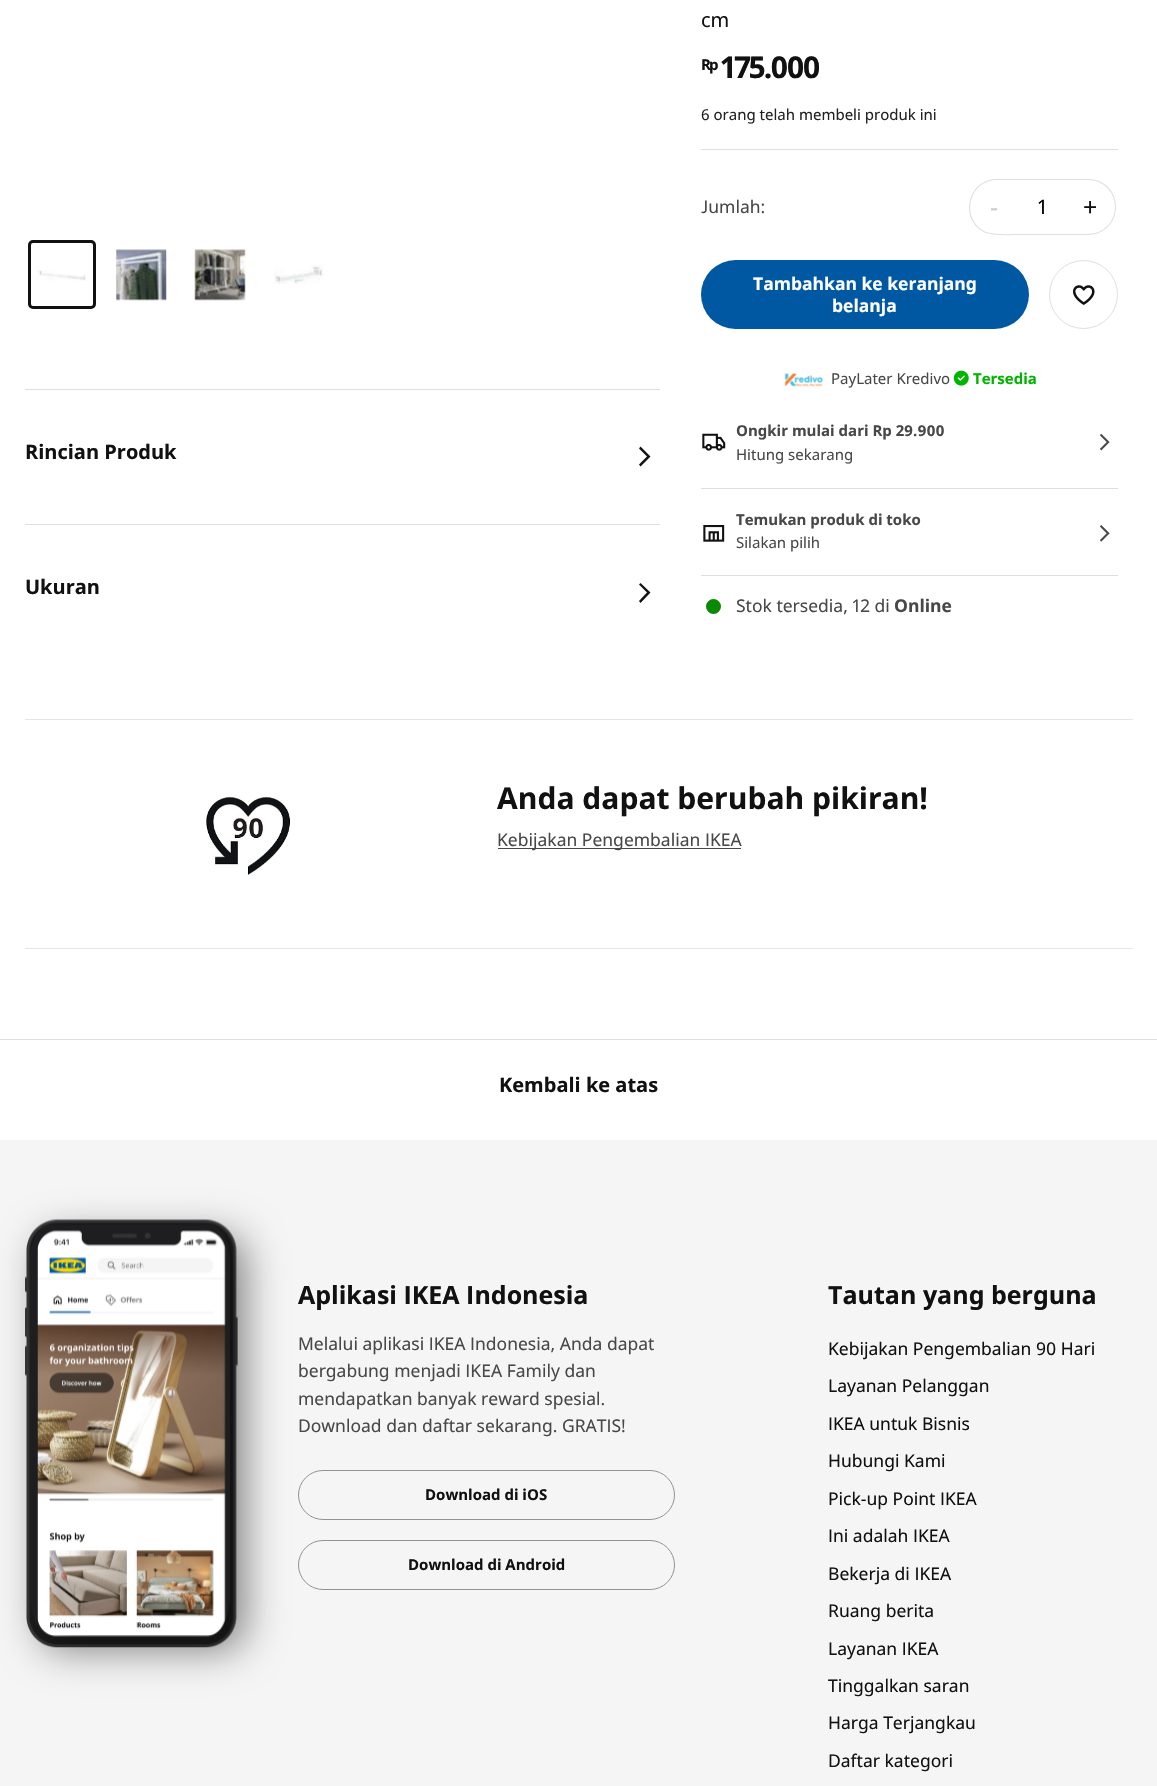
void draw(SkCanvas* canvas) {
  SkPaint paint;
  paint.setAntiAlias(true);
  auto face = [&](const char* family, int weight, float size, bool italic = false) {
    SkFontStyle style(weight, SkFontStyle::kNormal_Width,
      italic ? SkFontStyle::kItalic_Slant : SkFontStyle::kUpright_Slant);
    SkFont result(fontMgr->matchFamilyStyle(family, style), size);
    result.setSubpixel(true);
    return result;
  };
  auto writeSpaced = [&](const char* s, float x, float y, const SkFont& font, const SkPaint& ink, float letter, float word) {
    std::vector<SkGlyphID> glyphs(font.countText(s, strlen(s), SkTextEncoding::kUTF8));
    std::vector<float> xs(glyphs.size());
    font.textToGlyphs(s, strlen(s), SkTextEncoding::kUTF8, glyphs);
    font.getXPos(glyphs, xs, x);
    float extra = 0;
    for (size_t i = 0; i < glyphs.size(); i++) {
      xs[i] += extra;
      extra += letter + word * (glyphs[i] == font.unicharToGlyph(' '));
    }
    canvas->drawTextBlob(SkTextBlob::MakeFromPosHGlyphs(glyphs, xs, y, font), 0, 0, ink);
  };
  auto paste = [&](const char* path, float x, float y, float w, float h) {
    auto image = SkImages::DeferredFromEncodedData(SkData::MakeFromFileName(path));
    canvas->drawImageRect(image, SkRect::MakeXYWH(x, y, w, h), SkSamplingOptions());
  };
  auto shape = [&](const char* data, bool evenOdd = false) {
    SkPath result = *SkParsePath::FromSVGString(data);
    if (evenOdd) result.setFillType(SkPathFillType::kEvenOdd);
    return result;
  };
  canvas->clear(0xffffffff);
  paint.setStroke(true);
  paint.setStrokeWidth(3);
  paint.setColor(0xff111111);
  canvas->drawRoundRect(SkRect::MakeXYWH(29.5f, 241.5f, 65, 66), 3.5f, 3.5f, paint);
  paste("img/1.png", 37, 270, 49, 11);
  paste("img/2.png", 116, 249, 51, 52);
  paste("img/3.png", 194, 249, 52, 52);
  paste("img/4.png", 274, 265, 50, 19);
  paint.setStroke(false);
  {
    const struct { float x, y, w, h; SkColor color; } items[] = {
      {701, 149, 417, 1, 0xffdfdfdf},
      {1018, 179, 50, 1, 0xffdfdfdf},
      {1018, 234, 50, 1, 0xffdfdfdf},
    };
    for (auto [x, y, w, h, color] : items) {
      paint.setColor(color);
      canvas->drawRect(SkRect::MakeXYWH(x, y, w, h), paint);
    }
  }
  paint.setColor(0xffffffff);
  canvas->drawPath(shape("M997 179H1019V235H997C981.5 235 969 222.5 969 207C969 191.5 981.5 179 997 179Z"), paint);
  paint.setColor(0xffdfdfdf);
  canvas->drawPath(shape("M997 179H1019V235C1009 235 995 236 986 233C958 221 967 179 997 179ZM997 180H1019V234C1009 234 995 235 986 232C960 220 968 180 997 180Z", true), paint);
  paint.setColor(0xffffffff);
  canvas->drawPath(shape("M1066 179H1088C1103.5 179 1116 191.5 1116 207C1116 222.5 1103.5 235 1088 235H1066Z"), paint);
  paint.setColor(0xffdfdfdf);
  canvas->drawPath(shape("M1066 179H1088C1104 179 1116 191 1116 207C1116 222 1104 235 1088 235H1066ZM1066 180H1088C1103 180 1115 192 1115 207C1115 222 1103 234 1088 234H1066Z", true), paint);
  paint.setColor(0xff0058a3);
  canvas->drawRoundRect(SkRect::MakeXYWH(701, 260, 328, 69), 34.5f, 34.5f, paint);
  paint.setStroke(true);
  paint.setStrokeWidth(1);
  paint.setColor(0xffdfdfdf);
  canvas->drawCircle(1083.5f, 294.5f, 34, paint);
  paste("img/5.png", 1073, 285, 22, 20);
  paste("img/6.png", 784, 373, 39, 14);
  paste("img/7.png", 953, 370, 16, 16);
  paint.setStroke(false);
  canvas->drawRect(SkRect::MakeXYWH(701, 488, 417, 1), paint);
  paste("img/8.png", 702, 433, 24, 18);
  paste("img/9.png", 1099, 433, 11, 18);
  canvas->drawRect(SkRect::MakeXYWH(701, 575, 417, 1), paint);
  paste("img/10.png", 703, 525, 22, 17);
  paste("img/11.png", 1099, 525, 11, 17);
  paint.setColor(0xff0a8a00);
  canvas->drawCircle(713.5f, 606.5f, 6, paint);
  paint.setStroke(true);
  paint.setStrokeWidth(3);
  canvas->drawCircle(713.5f, 606.5f, 6, paint);
  paint.setStroke(false);
  paint.setColor(0xffdfdfdf);
  canvas->drawRect(SkRect::MakeXYWH(25, 389, 635, 1), paint);
  paint.setColor(0xff111111);
  canvas->drawPath(shape("M650.5 456.5L640.5 466.5L639 464.5L647 456.5L639 448.5L640.5 446.5Z"), paint);
  paint.setColor(0xffdfdfdf);
  canvas->drawRect(SkRect::MakeXYWH(25, 524, 635, 1), paint);
  paint.setColor(0xff111111);
  canvas->drawPath(shape("M650.5 592.5L640.5 603L639 601L647 592.5L639 584.5L640.5 583Z"), paint);
  paint.setColor(0xffe6e6e6);
  canvas->drawRect(SkRect::MakeXYWH(25, 719, 1108, 1), paint);
  paste("img/12.png", 206, 796, 84, 80);
  {
    const struct { float x, y, w, h; SkColor color; } items[] = {
      {498, 848, 243, 1, 0xff484848},
      {25, 948, 1108, 1, 0xffe6e6e6},
      {0, 1039, 1157, 1, 0xffdfdfdf},
      {0, 1140, 1157, 646, 0xfff5f5f5},
    };
    for (auto [x, y, w, h, color] : items) {
      paint.setColor(color);
      canvas->drawRect(SkRect::MakeXYWH(x, y, w, h), paint);
    }
  }
  paste("img/13.png", 25, 1219, 213, 429);
  paint.setStroke(true);
  paint.setStrokeWidth(1);
  paint.setColor(0xff929292);
  canvas->drawRoundRect(SkRect::MakeXYWH(298.5f, 1470.5f, 376, 49), 24.5f, 24.5f, paint);
  canvas->drawRoundRect(SkRect::MakeXYWH(298.5f, 1540.5f, 376, 49), 24.5f, 24.5f, paint);
  canvas->save();
  canvas->clipPath(shape("M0 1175H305V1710H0ZM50 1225H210C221 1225 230 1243.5 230 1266V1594C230 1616.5 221 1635 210 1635H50C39 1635 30 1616.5 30 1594V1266C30 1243.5 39 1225 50 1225Z", true), true);
  paint.setStroke(false);
  paint.setColor(0x80000000);
  paint.setMaskFilter(SkMaskFilter::MakeBlur(kNormal_SkBlurStyle, 20));
  canvas->drawRoundRect(SkRect::MakeXYWH(41, 1236, 203, 413), 21, 21, paint);
  paint.setMaskFilter(nullptr);
  canvas->restore();
  auto f0 = face("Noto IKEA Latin", 400, 20);
  paint.setColor(0xff111111);
  canvas->drawString("cm", 701, 27, f0, paint);
  auto f1 = face("Noto IKEA Latin", 700, 15);
  writeSpaced("Rp", 701, 70, f1, paint, -2, 0);
  auto f2 = face("Noto IKEA Latin", 700, 30);
  writeSpaced("175.000", 721, 78, f2, paint, -2, 0);
  auto f3 = face("Noto IKEA Latin", 400, 15);
  paint.setColor(0xff222222);
  canvas->drawString("6 orang telah membeli produk ini", 701, 120, f3, paint);
  auto f4 = face("Noto IKEA Latin", 400, 17.5f);
  paint.setColor(0xff484848);
  canvas->drawString("Jumlah:", 701, 213, f4, paint);
  auto f5 = face("Noto IKEA Latin", 400, 25);
  paint.setColor(0xffcccccc);
  canvas->drawString("-", 990, 216, f5, paint);
  paint.setColor(0xff000000);
  canvas->drawString("1", 1038, 214, f0, paint);
  paint.setColor(0xff111111);
  canvas->drawString("+", 1083, 216, f5, paint);
  auto f6 = face("Noto IKEA Latin", 700, 17.5f);
  paint.setColor(0xffffffff);
  canvas->drawString("Tambahkan ke keranjang", 753, 290, f6, paint);
  canvas->drawString("belanja", 832, 312, f6, paint);
  paint.setColor(0xff484848);
  canvas->drawString("PayLater Kredivo", 831, 384, f3, paint);
  paint.setColor(0xff00b500);
  canvas->drawString("Tersedia", 973, 384, f1, paint);
  paint.setColor(0xff484848);
  canvas->drawString("Ongkir mulai dari Rp 29.900", 736, 436, f1, paint);
  canvas->drawString("Hitung sekarang", 736, 460, f3, paint);
  canvas->drawString("Temukan produk di toko", 736, 525, f1, paint);
  canvas->drawString("Silakan pilih", 736, 548, f3, paint);
  canvas->drawString("Stok tersedia, 12 di", 736, 612, f4, paint);
  canvas->drawString("Online", 894, 612, f6, paint);
  auto f7 = face("Noto IKEA Latin", 700, 20);
  paint.setColor(0xff111111);
  canvas->drawString("Rincian Produk", 25, 459, f7, paint);
  canvas->drawString("Ukuran", 25, 594, f7, paint);
  canvas->drawString("Anda dapat berubah pikiran!", 497, 809, f2, paint);
  paint.setColor(0xff484848);
  canvas->drawString("Kebijakan Pengembalian IKEA", 497, 846, f4, paint);
  paint.setColor(0xff111111);
  canvas->drawString("Kembali ke atas", 499, 1092, f7, paint);
  auto f8 = face("Noto IKEA Latin", 700, 25);
  canvas->drawString("Aplikasi IKEA Indonesia", 298, 1304, f8, paint);
  paint.setColor(0xff484848);
  {
    const struct { const char* s; float x, y; } items[] = {
      {"Melalui aplikasi IKEA Indonesia, Anda dapat", 298, 1350},
      {"bergabung menjadi IKEA Family dan", 298, 1377},
      {"mendapatkan banyak reward spesial.", 298, 1405},
      {"Download dan daftar sekarang. GRATIS!", 298, 1432},
    };
    for (auto [s, x, y] : items) {
      canvas->drawString(s, x, y, f4, paint);
    }
  }
  paint.setColor(0xff111111);
  canvas->drawString("Download di iOS", 425, 1500, f1, paint);
  canvas->drawString("Download di Android", 408, 1570, f1, paint);
  canvas->drawString("Tautan yang berguna", 828, 1304, f8, paint);
  {
    const struct { const char* s; float x, y; } items[] = {
      {"Kebijakan Pengembalian 90 Hari", 828, 1355},
      {"Layanan Pelanggan", 828, 1392},
      {"IKEA untuk Bisnis", 828, 1430},
      {"Hubungi Kami", 828, 1467},
      {"Pick-up Point IKEA", 828, 1505},
      {"Ini adalah IKEA", 828, 1542},
      {"Bekerja di IKEA", 828, 1580},
      {"Ruang berita", 828, 1617},
      {"Layanan IKEA", 828, 1655},
      {"Tinggalkan saran", 828, 1692},
      {"Harga Terjangkau", 828, 1729},
      {"Daftar kategori", 828, 1767},
    };
    for (auto [s, x, y] : items) {
      canvas->drawString(s, x, y, f4, paint);
    }
  }
}
